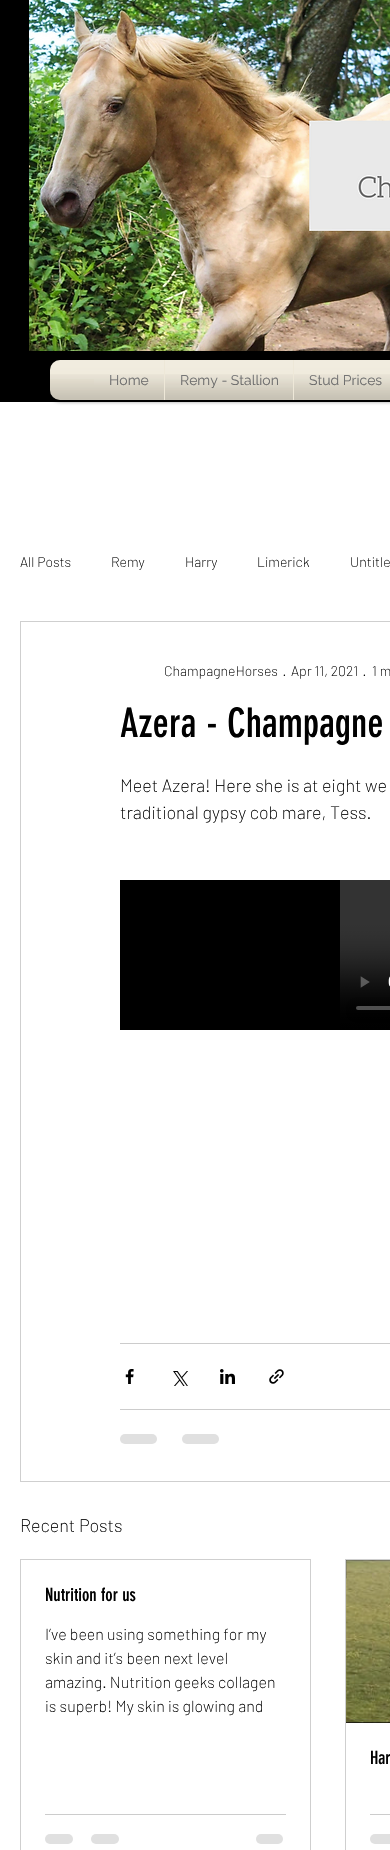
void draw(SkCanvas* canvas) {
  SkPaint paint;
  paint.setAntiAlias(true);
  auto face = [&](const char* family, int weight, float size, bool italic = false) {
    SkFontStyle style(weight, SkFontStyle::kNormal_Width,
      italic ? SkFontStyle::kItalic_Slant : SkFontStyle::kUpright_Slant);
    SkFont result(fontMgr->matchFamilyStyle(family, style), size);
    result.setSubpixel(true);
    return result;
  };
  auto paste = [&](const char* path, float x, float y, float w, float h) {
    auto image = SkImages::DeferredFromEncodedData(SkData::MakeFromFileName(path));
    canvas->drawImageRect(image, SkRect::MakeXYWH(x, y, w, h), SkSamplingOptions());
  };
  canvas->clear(0xffffffff);
  paint.setColor(0xff000000);
  canvas->drawRect(SkRect::MakeXYWH(0, 0, 390, 402), paint);
  paste("img/1.png", 29, 0, 361, 351);
  paint.setColor(0x99000000);
  paint.setMaskFilter(SkMaskFilter::MakeBlur(kNormal_SkBlurStyle, 2));
  canvas->drawRoundRect(SkRect::MakeXYWH(50, 361, 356, 40), 10, 10, paint);
  paint.setMaskFilter(nullptr);
  paint.setColor(0xffeee8d8);
  canvas->drawRoundRect(SkRect::MakeXYWH(50, 360, 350, 40), 10, 10, paint);
  paste("img/2.png", 50, 360, 44, 19);
  paste("img/3.png", 50, 374, 44, 26);
  paint.setStroke(true);
  paint.setStrokeWidth(1);
  paint.setColor(0xffcfcfcf);
  canvas->drawRect(SkRect::MakeXYWH(20.5f, 621.5f, 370, 860), paint);
  paste("img/10.png", 120, 880, 270, 150);
  paint.setStroke(false);
  paint.setColor(0xffcccccc);
  canvas->drawRect(SkRect::MakeXYWH(120, 1343, 270, 1), paint);
  paste("img/11.png", 125, 1369, 9, 15);
  paste("img/12.png", 173, 1371, 15, 15);
  paste("img/13.png", 220, 1369, 15, 15);
  paste("img/14.png", 269, 1369, 15, 15);
  canvas->drawRect(SkRect::MakeXYWH(120, 1409, 270, 1), paint);
  paint.setColor(0xffe0e0e0);
  canvas->drawRoundRect(SkRect::MakeXYWH(120, 1434, 37, 10), 5, 5, paint);
  canvas->drawRoundRect(SkRect::MakeXYWH(182, 1434, 37, 10), 5, 5, paint);
  paint.setStroke(true);
  paint.setColor(0xffcfcfcf);
  canvas->drawRect(SkRect::MakeXYWH(20.5f, 1559.5f, 290, 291), paint);
  paint.setStroke(false);
  paint.setColor(0xffcccccc);
  canvas->drawRect(SkRect::MakeXYWH(45, 1814, 241, 1), paint);
  paint.setColor(0xffe0e0e0);
  canvas->drawRoundRect(SkRect::MakeXYWH(45, 1834, 28, 10), 5, 5, paint);
  canvas->drawRoundRect(SkRect::MakeXYWH(91, 1834, 28, 10), 5, 5, paint);
  canvas->drawRoundRect(SkRect::MakeXYWH(256, 1834, 27, 10), 5, 5, paint);
  paint.setStroke(true);
  paint.setColor(0xffcfcfcf);
  canvas->drawRect(SkRect::MakeXYWH(345.5f, 1559.5f, 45, 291), paint);
  paste("img/15.png", 346, 1560, 44, 163);
  paint.setStroke(false);
  paint.setColor(0xffcccccc);
  canvas->drawRect(SkRect::MakeXYWH(370, 1814, 20, 1), paint);
  paint.setColor(0xffe0e0e0);
  canvas->drawRoundRect(SkRect::MakeXYWH(370, 1834, 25, 10), 5, 5, paint);
  auto f0 = face("Raleway", 400, 14);
  paint.setColor(0xff696969);
  canvas->drawString("Home", 109, 385, f0, paint);
  paste("img/4.png", 94, 360, 70, 25);
  paste("img/5.png", 94, 374, 70, 26);
  canvas->drawString("Remy - Stallion", 180, 385, f0, paint);
  paste("img/6.png", 165, 360, 128, 28);
  paste("img/7.png", 165, 374, 128, 26);
  canvas->drawString("Stud Prices", 309, 385, f0, paint);
  paste("img/8.png", 294, 360, 96, 25);
  paste("img/9.png", 294, 374, 96, 26);
  auto f1 = face("Barlow", 200, 14);
  paint.setColor(0xff000000);
  {
    const struct { const char* s; float x, y; } items[] = {
      {"All Posts", 20, 567},
      {"Remy", 111, 567},
      {"Harry", 185, 567},
      {"Limerick", 257, 567},
      {"Untitle", 350, 567},
      {"ChampagneHorses", 164, 676},
      {"·", 284, 676},
      {"Apr 11, 2021", 291, 676},
      {"·", 364, 676},
      {"1 m", 372, 676},
    };
    for (auto [s, x, y] : items) {
      canvas->drawString(s, x, y, f1, paint);
    }
  }
  auto f2 = face("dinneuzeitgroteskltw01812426", 400, 40);
  canvas->drawString("Azera - Champagne", 120, 737, f2, paint);
  auto f3 = face("Barlow", 200, 18);
  {
    const struct { const char* s; float x, y; } items[] = {
      {"Meet Azera! Here she is at eight we", 120, 792},
      {"traditional gypsy cob mare, Tess.", 120, 819},
      {"Recent Posts", 20, 1532},
    };
    for (auto [s, x, y] : items) {
      canvas->drawString(s, x, y, f3, paint);
    }
  }
  auto f4 = face("dinneuzeitgroteskltw01812426", 400, 18);
  canvas->drawString("Nutrition for us", 45, 1601, f4, paint);
  auto f5 = face("Barlow", 200, 16);
  {
    const struct { const char* s; float x, y; } items[] = {
      {"I’ve been using something for my", 45, 1640},
      {"skin and it’s been next level", 45, 1664},
      {"amazing. Nutrition geeks collagen", 45, 1688},
      {"is superb! My skin is glowing and", 45, 1712},
    };
    for (auto [s, x, y] : items) {
      canvas->drawString(s, x, y, f5, paint);
    }
  }
  canvas->drawString("Har", 370, 1764, f4, paint);
}
